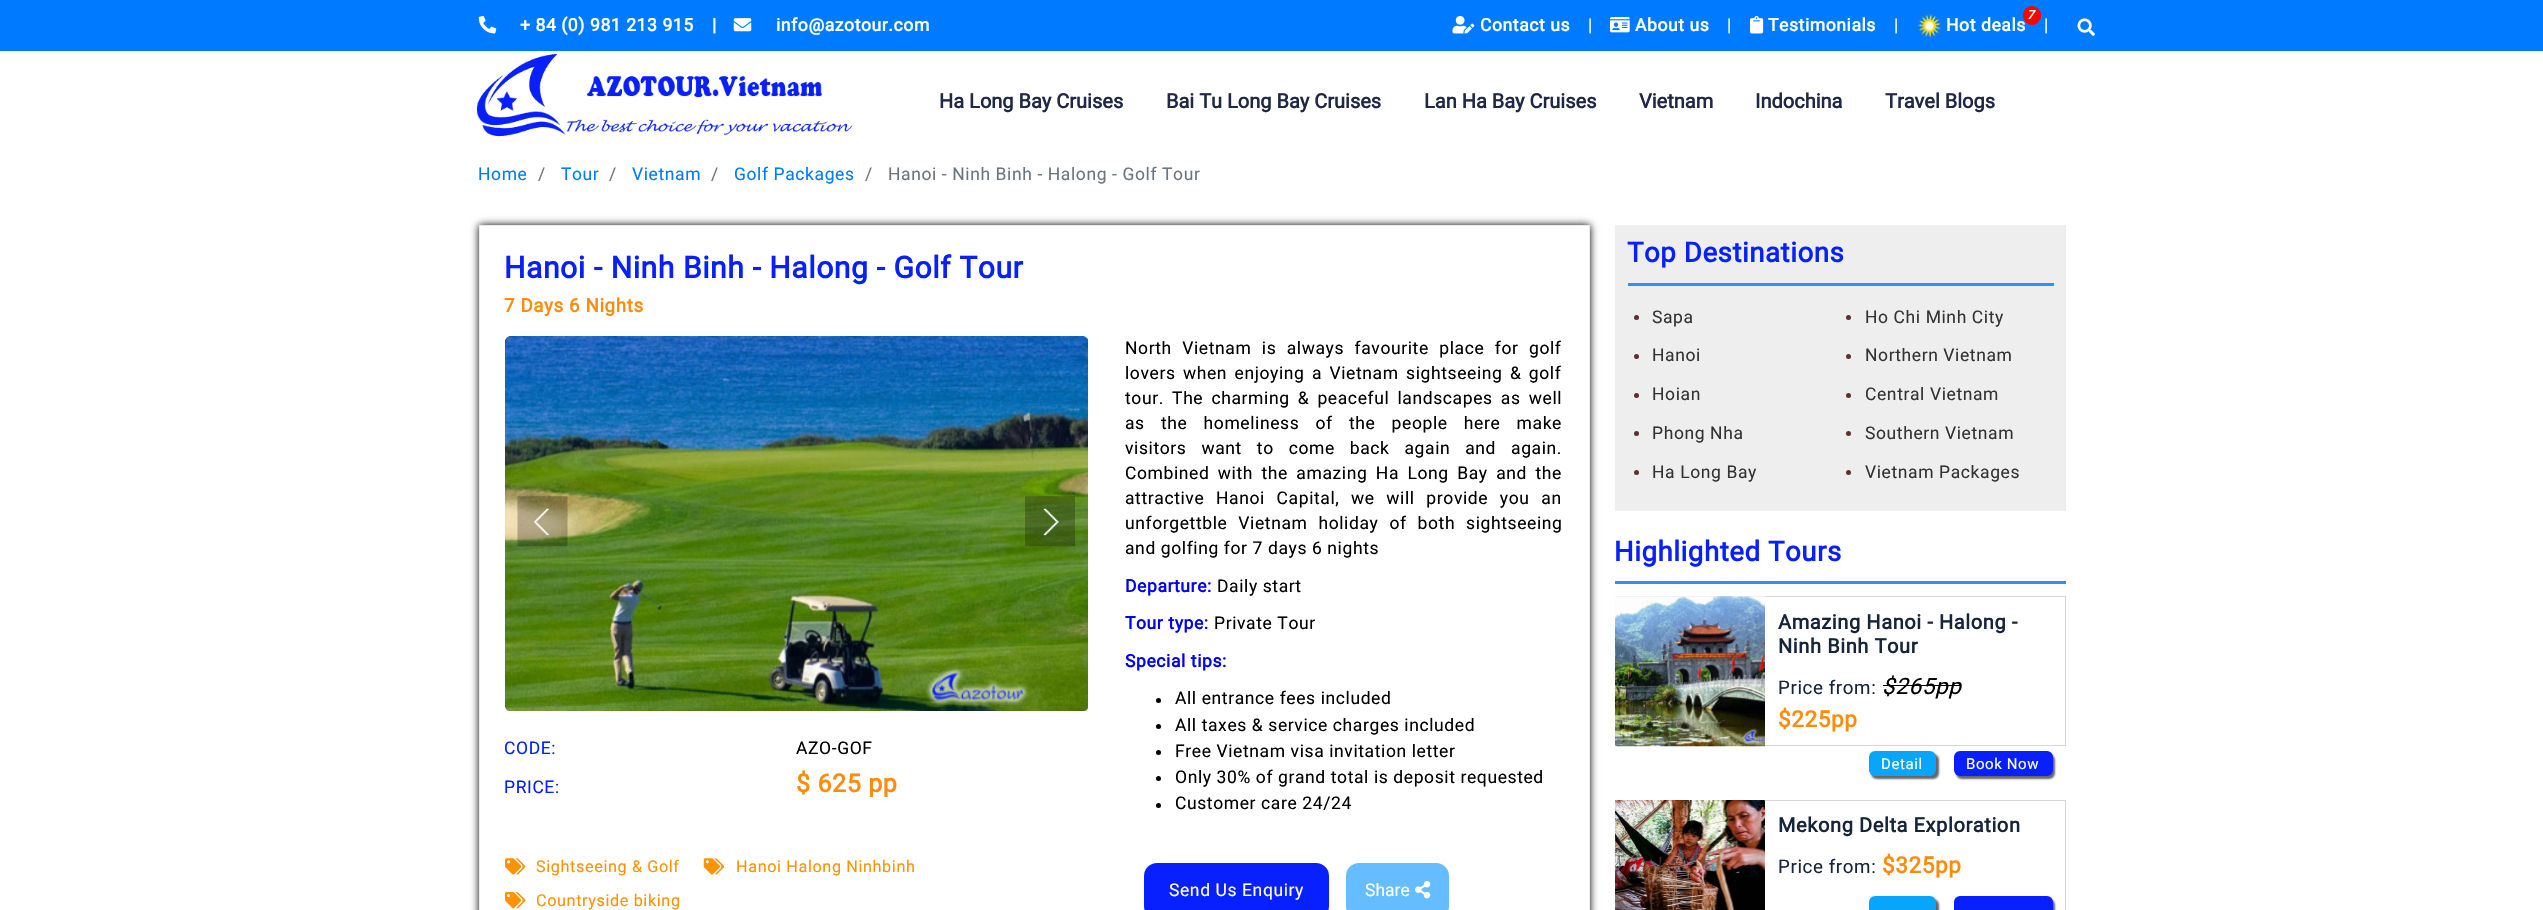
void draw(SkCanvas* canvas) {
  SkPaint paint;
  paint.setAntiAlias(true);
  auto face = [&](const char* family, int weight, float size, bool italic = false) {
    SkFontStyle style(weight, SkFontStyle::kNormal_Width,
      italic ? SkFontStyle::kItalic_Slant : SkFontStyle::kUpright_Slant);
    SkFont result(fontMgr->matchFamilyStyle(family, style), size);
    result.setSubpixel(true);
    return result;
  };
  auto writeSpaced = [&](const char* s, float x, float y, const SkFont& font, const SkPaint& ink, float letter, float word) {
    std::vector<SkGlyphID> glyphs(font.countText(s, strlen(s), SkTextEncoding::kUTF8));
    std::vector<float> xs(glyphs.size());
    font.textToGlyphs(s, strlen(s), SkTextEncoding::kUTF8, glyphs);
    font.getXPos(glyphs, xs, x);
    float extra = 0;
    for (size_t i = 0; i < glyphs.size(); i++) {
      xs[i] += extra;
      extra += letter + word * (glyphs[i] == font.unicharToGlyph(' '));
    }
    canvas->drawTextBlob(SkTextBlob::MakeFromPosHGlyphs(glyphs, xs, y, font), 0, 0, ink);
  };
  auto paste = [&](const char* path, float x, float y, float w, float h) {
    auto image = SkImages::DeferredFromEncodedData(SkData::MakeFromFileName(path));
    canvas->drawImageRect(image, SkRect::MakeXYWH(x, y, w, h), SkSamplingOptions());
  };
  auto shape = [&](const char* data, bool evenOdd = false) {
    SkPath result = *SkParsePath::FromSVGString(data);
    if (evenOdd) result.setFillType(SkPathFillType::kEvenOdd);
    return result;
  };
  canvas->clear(0xffffffff);
  paint.setColor(0xff007bff);
  canvas->drawRect(SkRect::MakeXYWH(0, 0, 2543, 51), paint);
  paste("img/1.png", 478, 16, 19, 18);
  paste("img/2.png", 733, 18, 19, 14);
  paste("img/3.png", 1452, 15, 23, 19);
  paste("img/4.png", 1610, 17, 20, 16);
  paste("img/5.png", 1750, 16, 14, 18);
  paste("img/6.png", 1917, 14, 24, 24);
  paste("img/7.png", 2077, 18, 18, 18);
  paste("img/8.png", 476, 53, 377, 84);
  canvas->save();
  canvas->clipPath(shape("M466 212H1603V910H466ZM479 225H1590V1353H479Z", true), true);
  paint.setColor(0xff000000);
  paint.setMaskFilter(SkMaskFilter::MakeBlur(kNormal_SkBlurStyle, 4));
  canvas->drawRect(SkRect::MakeXYWH(479, 225, 1111, 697), paint);
  paint.setMaskFilter(nullptr);
  canvas->restore();
  paint.setStroke(true);
  paint.setStrokeWidth(1);
  paint.setColor(0xffeaecee);
  canvas->drawRect(SkRect::MakeXYWH(479.5f, 225.5f, 1110, 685), paint);
  paste("img/9.png", 505, 336, 583, 375);
  paste("img/10.png", 505, 336, 583, 375);
  paste("img/11.png", 517, 496, 51, 51);
  paste("img/12.png", 1025, 496, 50, 51);
  paint.setStroke(false);
  paint.setColor(0xff000000);
  canvas->drawCircle(1158.5f, 700.5f, 2.5f, paint);
  canvas->drawCircle(1158.5f, 726.5f, 2.5f, paint);
  canvas->drawCircle(1158.5f, 752.5f, 2.5f, paint);
  canvas->drawCircle(1158.5f, 778.5f, 2.5f, paint);
  canvas->drawCircle(1158.5f, 805.5f, 2.5f, paint);
  paste("img/13.png", 505, 858, 21, 17);
  paste("img/14.png", 703, 858, 21, 17);
  paste("img/15.png", 505, 892, 21, 17);
  paint.setColor(0xff0720fd);
  canvas->drawRoundRect(SkRect::MakeXYWH(1144, 863, 185, 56), 13, 13, paint);
  paint.setColor(0xff65bcff);
  canvas->drawRoundRect(SkRect::MakeXYWH(1346, 863, 103, 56), 13, 13, paint);
  paste("img/16.png", 1415, 881, 16, 18);
  paint.setColor(0xffeeeeee);
  canvas->drawRect(SkRect::MakeXYWH(1615, 225, 451, 286), paint);
  paint.setColor(0xff2d91fb);
  canvas->drawRect(SkRect::MakeXYWH(1628, 283, 426, 3), paint);
  paint.setColor(0xff5f2e2e);
  canvas->drawCircle(1636.5f, 317.5f, 2.5f, paint);
  canvas->drawCircle(1636.5f, 356.5f, 2.5f, paint);
  canvas->drawCircle(1636.5f, 395.5f, 2.5f, paint);
  canvas->drawCircle(1636.5f, 433.5f, 2.5f, paint);
  canvas->drawCircle(1636.5f, 472.5f, 2.5f, paint);
  canvas->drawCircle(1848.5f, 317.5f, 2.5f, paint);
  canvas->drawCircle(1848.5f, 356.5f, 2.5f, paint);
  canvas->drawCircle(1848.5f, 395.5f, 2.5f, paint);
  canvas->drawCircle(1848.5f, 433.5f, 2.5f, paint);
  canvas->drawCircle(1848.5f, 472.5f, 2.5f, paint);
  paint.setColor(0xff2d91fb);
  canvas->drawRect(SkRect::MakeXYWH(1615, 581, 451, 3), paint);
  paint.setStroke(true);
  paint.setColor(0xffd6d6d6);
  canvas->drawRect(SkRect::MakeXYWH(1615.5f, 596.5f, 450, 149), paint);
  paste("img/17.png", 1615, 596, 150, 151);
  paint.setStroke(false);
  paint.setColor(0xff000000);
  canvas->drawRect(SkRect::MakeXYWH(1883, 685, 78, 1), paint);
  paint.setColor(0xff666666);
  paint.setMaskFilter(SkMaskFilter::MakeBlur(kNormal_SkBlurStyle, 1));
  canvas->drawRoundRect(SkRect::MakeXYWH(1871, 754, 68, 25), 6, 6, paint);
  paint.setMaskFilter(nullptr);
  paint.setColor(0xff07a6fb);
  canvas->drawRoundRect(SkRect::MakeXYWH(1869, 751, 67, 25), 6, 6, paint);
  paint.setColor(0xff666666);
  paint.setMaskFilter(SkMaskFilter::MakeBlur(kNormal_SkBlurStyle, 1));
  canvas->drawRoundRect(SkRect::MakeXYWH(1956, 754, 99, 25), 6, 6, paint);
  paint.setMaskFilter(nullptr);
  paint.setColor(0xff0720fd);
  canvas->drawRoundRect(SkRect::MakeXYWH(1954, 751, 99, 25), 6, 6, paint);
  paint.setStroke(true);
  paint.setColor(0xffd6d6d6);
  canvas->drawRect(SkRect::MakeXYWH(1615.5f, 800.5f, 450, 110), paint);
  paste("img/18.png", 1615, 800, 150, 110);
  paint.setStroke(false);
  paint.setColor(0xff666666);
  paint.setMaskFilter(SkMaskFilter::MakeBlur(kNormal_SkBlurStyle, 1));
  canvas->drawRoundRect(SkRect::MakeXYWH(1871, 899, 68, 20), 6, 6, paint);
  paint.setMaskFilter(nullptr);
  paint.setMaskFilter(SkMaskFilter::MakeBlur(kNormal_SkBlurStyle, 1));
  canvas->drawRoundRect(SkRect::MakeXYWH(1956, 899, 99, 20), 6, 6, paint);
  paint.setMaskFilter(nullptr);
  paint.setColor(0xff07a6fb);
  canvas->drawRoundRect(SkRect::MakeXYWH(1869, 896, 67, 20), 6, 6, paint);
  paint.setColor(0xff0720fd);
  canvas->drawRoundRect(SkRect::MakeXYWH(1954, 896, 99, 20), 6, 6, paint);
  auto f0 = face("Roboto", 700, 17.5f);
  paint.setColor(0xffffffff);
  {
    const struct { const char* s; float x, y; } items[] = {
      {"+ 84 (0) 981 213 915", 520, 31},
      {"|", 712, 31},
      {"info@azotour.com", 776, 31},
      {"Contact us", 1480, 31},
    };
    for (auto [s, x, y] : items) {
      writeSpaced(s, x, y, f0, paint, 0.6f, 0);
    }
  }
  auto f1 = face("Roboto", 400, 17.5f);
  writeSpaced("|", 1588, 31, f1, paint, 0.6f, 0);
  writeSpaced("About us", 1635, 31, f0, paint, 0.6f, 0);
  writeSpaced("|", 1727, 31, f1, paint, 0.6f, 0);
  writeSpaced("Testimonials", 1768, 31, f0, paint, 0.6f, 0);
  writeSpaced("|", 1894, 31, f1, paint, 0.6f, 0);
  writeSpaced("Hot deals", 1946, 31, f0, paint, 0.6f, 0);
  paint.setColor(0xffff0000);
  canvas->drawRoundRect(SkRect::MakeXYWH(2023, 6, 18, 19), 9, 9, paint);
  auto f2 = face("Roboto", 700, 12, true);
  paint.setColor(0xffffffff);
  writeSpaced("7", 2027, 19, f2, paint, 0.6f, 0);
  writeSpaced("|", 2044, 31, f1, paint, 0.6f, 0);
  auto f3 = face("Roboto", 700, 20);
  paint.setColor(0xff202845);
  {
    const struct { const char* s; float x, y; } items[] = {
      {"Ha Long Bay Cruises", 939, 108},
      {"Bai Tu Long Bay Cruises", 1166, 108},
      {"Lan Ha Bay Cruises", 1424, 108},
      {"Vietnam", 1639, 108},
      {"Indochina", 1755, 108},
      {"Travel Blogs", 1885, 108},
    };
    for (auto [s, x, y] : items) {
      canvas->drawString(s, x, y, f3, paint);
    }
  }
  paint.setColor(0xff007bff);
  writeSpaced("Home", 478, 180, f1, paint, 0.6f, 0);
  paint.setColor(0xff6c757d);
  writeSpaced("/", 538, 180, f1, paint, 0.6f, 0);
  paint.setColor(0xff007bff);
  writeSpaced("Tour", 561, 180, f1, paint, 0.6f, 0);
  paint.setColor(0xff6c757d);
  writeSpaced("/", 609, 180, f1, paint, 0.6f, 0);
  paint.setColor(0xff007bff);
  writeSpaced("Vietnam", 632, 180, f1, paint, 0.6f, 0);
  paint.setColor(0xff6c757d);
  writeSpaced("/", 711, 180, f1, paint, 0.6f, 0);
  paint.setColor(0xff007bff);
  writeSpaced("Golf Packages", 734, 180, f1, paint, 0.6f, 0);
  paint.setColor(0xff6c757d);
  writeSpaced("/", 865, 180, f1, paint, 0.6f, 0);
  writeSpaced("Hanoi - Ninh Binh - Halong - Golf Tour", 888, 180, f1, paint, 0.6f, 0);
  auto f4 = face("Roboto", 700, 30);
  paint.setColor(0xff0720fd);
  writeSpaced("Hanoi - Ninh Binh - Halong - Golf Tour", 504, 278, f4, paint, 0.6f, 0);
  auto f5 = face("Roboto", 700, 18.75f);
  paint.setColor(0xfffd8c0c);
  writeSpaced("7 Days 6 Nights", 504, 312, f5, paint, 0.6f, 0);
  paint.setColor(0xff0720fd);
  writeSpaced("CODE:", 504, 754, f1, paint, 0.6f, 0);
  paint.setColor(0xff000000);
  writeSpaced("AZO-GOF", 796, 754, f1, paint, 0.6f, 0);
  paint.setColor(0xff0720fd);
  writeSpaced("PRICE:", 504, 793, f1, paint, 0.6f, 0);
  auto f6 = face("Roboto", 700, 25);
  paint.setColor(0xfffd8c0c);
  writeSpaced("$ 625 pp", 796, 792, f6, paint, 0.6f, 0);
  paint.setColor(0xff000000);
  writeSpaced("North Vietnam is always favourite place for golf", 1125, 354, f1, paint, 0.6f, 5.5f);
  writeSpaced("lovers when enjoying a Vietnam sightseeing & golf", 1125, 379, f1, paint, 0.6f, 2.5f);
  writeSpaced("tour. The charming & peaceful landscapes as well", 1125, 404, f1, paint, 0.6f, 3.25f);
  writeSpaced("as the homeliness of the people here make", 1125, 429, f1, paint, 0.6f, 11.25f);
  writeSpaced("visitors want to come back again and again.", 1125, 454, f1, paint, 0.6f, 10);
  writeSpaced("Combined with the amazing Ha Long Bay and the", 1125, 479, f1, paint, 0.6f, 3.5f);
  writeSpaced("attractive Hanoi Capital, we will provide you an", 1125, 504, f1, paint, 0.6f, 6.75f);
  writeSpaced("unforgettble Vietnam holiday of both sightseeing", 1125, 529, f1, paint, 0.6f, 6);
  writeSpaced("and golfing for 7 days 6 nights", 1125, 554, f1, paint, 0.6f, 0);
  paint.setColor(0xff0000ff);
  writeSpaced("Departure:", 1125, 592, f0, paint, 0.6f, 0);
  paint.setColor(0xff000000);
  writeSpaced("Daily start", 1217, 592, f1, paint, 0.6f, 0);
  paint.setColor(0xff0000ff);
  writeSpaced("Tour type:", 1125, 629, f0, paint, 0.6f, 0);
  paint.setColor(0xff000000);
  writeSpaced("Private Tour", 1214, 629, f1, paint, 0.6f, 0);
  paint.setColor(0xff0000ff);
  writeSpaced("Special tips:", 1125, 667, f0, paint, 0.6f, 0);
  paint.setColor(0xff000000);
  {
    const struct { const char* s; float x, y; } items[] = {
      {"All entrance fees included", 1175, 704},
      {"All taxes & service charges included", 1175, 731},
      {"Free Vietnam visa invitation letter", 1175, 757},
      {"Only 30% of grand total is deposit requested", 1175, 783},
      {"Customer care 24/24", 1175, 809},
    };
    for (auto [s, x, y] : items) {
      writeSpaced(s, x, y, f1, paint, 0.6f, 0);
    }
  }
  auto f7 = face("Roboto", 400, 16.25f);
  paint.setColor(0xffff9200);
  {
    const struct { const char* s; float x, y; } items[] = {
      {"Sightseeing & Golf", 536, 872},
      {"Hanoi Halong Ninhbinh", 736, 872},
      {"Countryside biking", 536, 906},
    };
    for (auto [s, x, y] : items) {
      writeSpaced(s, x, y, f7, paint, 0.6f, 0);
    }
  }
  paint.setColor(0xffffffff);
  writeSpaced("Send Us Enquiry", 1169, 896, f1, paint, 0.6f, 0);
  canvas->drawString("Share", 1365, 896, f1, paint);
  auto f8 = face("Roboto", 700, 27.5f);
  paint.setColor(0xff0720fd);
  writeSpaced("Top Destinations", 1627, 262, f8, paint, 0.6f, 0);
  paint.setColor(0xff333333);
  {
    const struct { const char* s; float x, y; } items[] = {
      {"Sapa", 1652, 323},
      {"Hanoi", 1652, 361},
      {"Hoian", 1652, 400},
      {"Phong Nha", 1652, 439},
      {"Ha Long Bay", 1652, 478},
      {"Ho Chi Minh City", 1865, 323},
      {"Northern Vietnam", 1865, 361},
      {"Central Vietnam", 1865, 400},
      {"Southern Vietnam", 1865, 439},
      {"Vietnam Packages", 1865, 478},
    };
    for (auto [s, x, y] : items) {
      writeSpaced(s, x, y, f1, paint, 0.6f, 0);
    }
  }
  paint.setColor(0xff0720fd);
  writeSpaced("Highlighted Tours", 1614, 561, f8, paint, 0.6f, 0);
  paint.setColor(0xff17253b);
  writeSpaced("Amazing Hanoi - Halong -", 1778, 629, f3, paint, 0.6f, 0);
  writeSpaced("Ninh Binh Tour", 1778, 653, f3, paint, 0.6f, 0);
  auto f9 = face("Roboto", 400, 18.75f);
  writeSpaced("Price from:", 1778, 694, f9, paint, 0.6f, 0);
  auto f10 = face("Roboto", 400, 22.5f, true);
  paint.setColor(0xff000000);
  writeSpaced("$265pp", 1882, 694, f10, paint, 0.6f, 0);
  auto f11 = face("Roboto", 700, 22.5f);
  paint.setColor(0xfffd8c0c);
  writeSpaced("$225pp", 1778, 727, f11, paint, 0.6f, 0);
  auto f12 = face("Roboto", 400, 15);
  paint.setColor(0xffffffff);
  writeSpaced("Detail", 1881, 769, f12, paint, 0.6f, 0);
  writeSpaced("Book Now", 1966, 769, f12, paint, 0.6f, 0);
  paint.setColor(0xff17253b);
  writeSpaced("Mekong Delta Exploration", 1778, 832, f3, paint, 0.6f, 0);
  writeSpaced("Price from:", 1778, 873, f9, paint, 0.6f, 0);
  paint.setColor(0xfffd8c0c);
  writeSpaced("$325pp", 1882, 873, f11, paint, 0.6f, 0);
}
